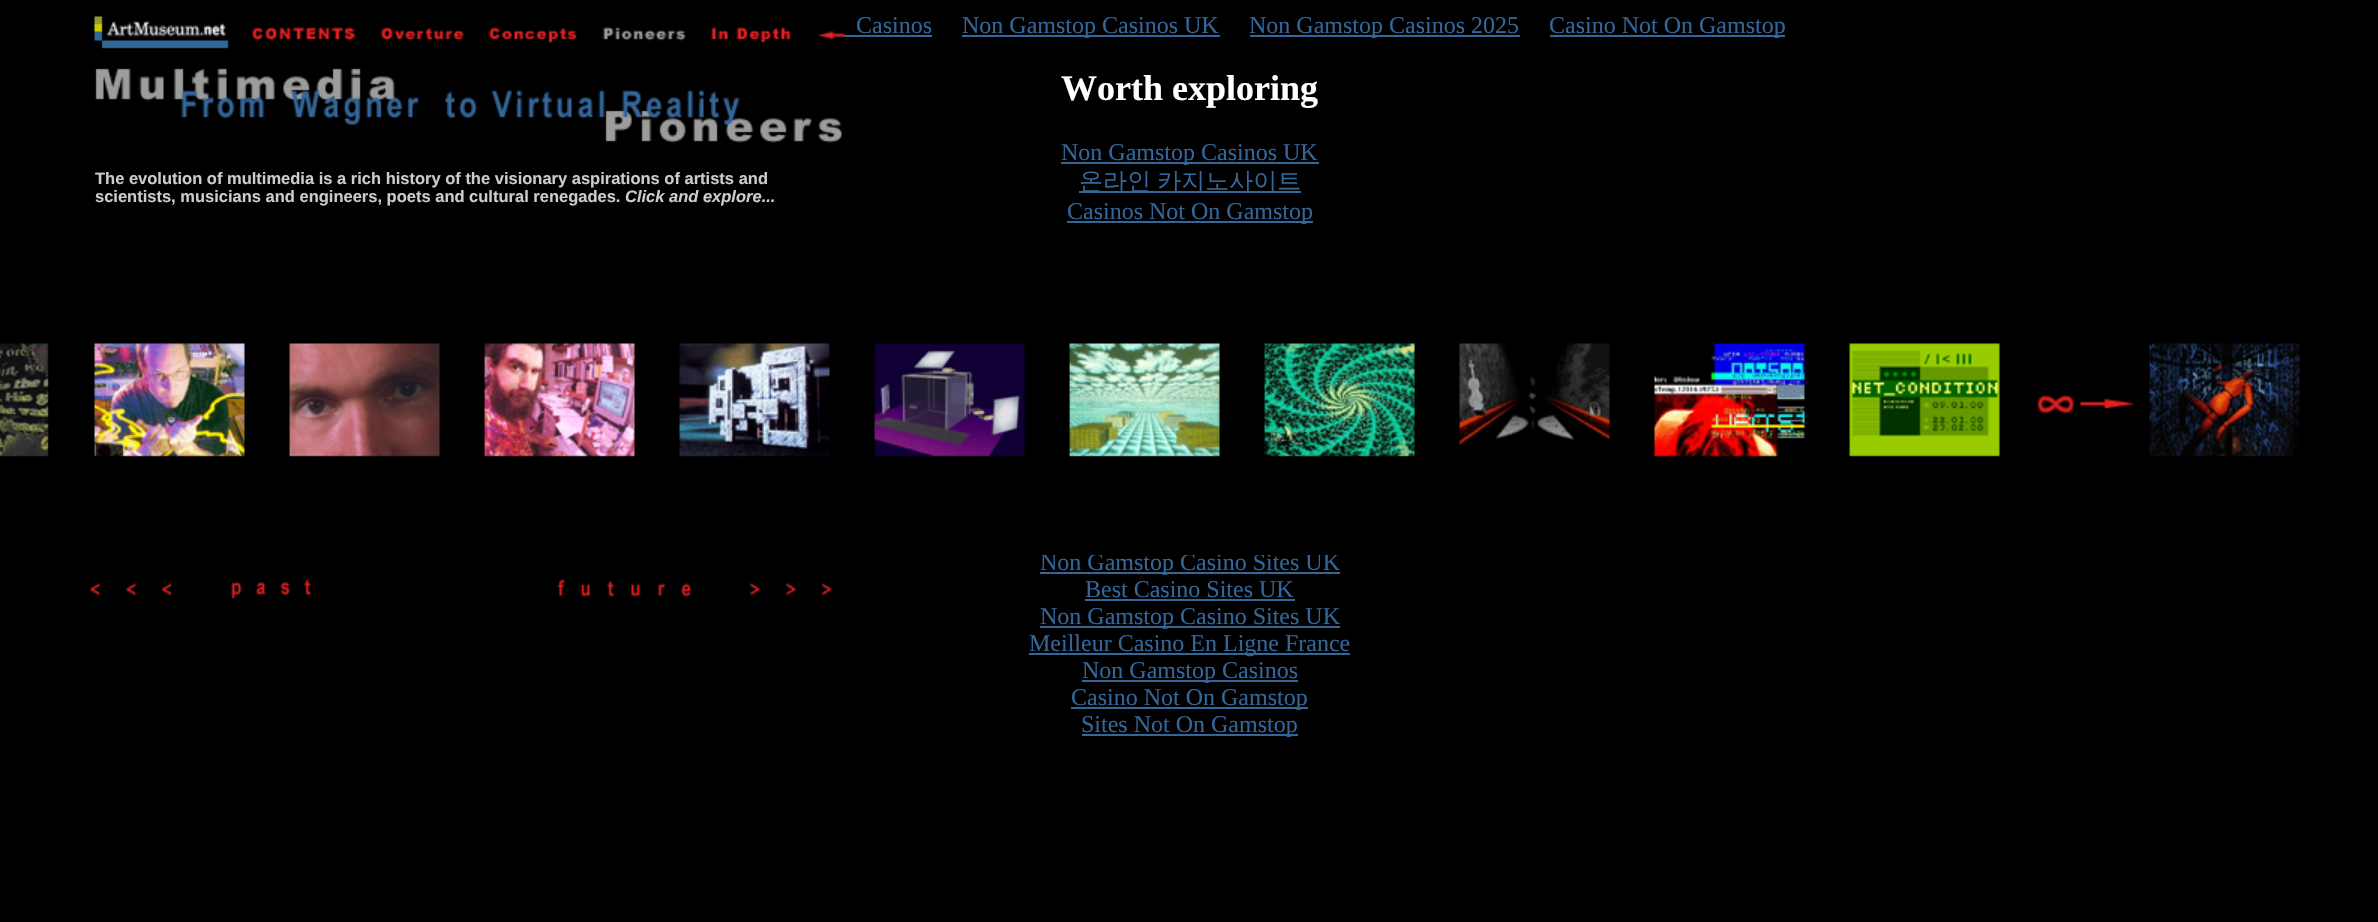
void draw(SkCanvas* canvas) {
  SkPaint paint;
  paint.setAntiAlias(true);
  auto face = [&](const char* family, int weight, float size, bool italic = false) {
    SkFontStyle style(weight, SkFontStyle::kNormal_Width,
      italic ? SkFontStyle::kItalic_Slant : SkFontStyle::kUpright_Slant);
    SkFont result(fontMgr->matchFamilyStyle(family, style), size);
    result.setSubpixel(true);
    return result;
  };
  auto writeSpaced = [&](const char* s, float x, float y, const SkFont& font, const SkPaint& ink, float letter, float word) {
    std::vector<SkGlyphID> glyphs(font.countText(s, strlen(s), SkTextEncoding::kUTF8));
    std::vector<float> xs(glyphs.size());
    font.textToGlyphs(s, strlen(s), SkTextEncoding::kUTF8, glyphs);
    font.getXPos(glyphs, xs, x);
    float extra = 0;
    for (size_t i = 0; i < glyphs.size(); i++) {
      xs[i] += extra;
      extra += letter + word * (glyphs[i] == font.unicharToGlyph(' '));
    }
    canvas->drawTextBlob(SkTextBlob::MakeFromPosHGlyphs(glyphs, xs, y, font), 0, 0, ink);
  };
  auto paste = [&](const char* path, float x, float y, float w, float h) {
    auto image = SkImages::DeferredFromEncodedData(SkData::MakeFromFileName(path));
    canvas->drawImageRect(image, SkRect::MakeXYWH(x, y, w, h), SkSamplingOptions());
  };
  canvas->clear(0xff000000);
  paint.setColor(0xff336699);
  canvas->drawRect(SkRect::MakeXYWH(844, 35, 88, 2), paint);
  paste("img/1.png", 94, 16, 751, 33);
  {
    const struct { float x, y, w, h; SkColor color; } items[] = {
      {962, 35, 258, 2, 0xff336699},
      {1250, 35, 270, 2, 0xff336699},
      {1550, 35, 235, 2, 0xff336699},
    };
    for (auto [x, y, w, h, color] : items) {
      paint.setColor(color);
      canvas->drawRect(SkRect::MakeXYWH(x, y, w, h), paint);
    }
  }
  paste("img/2.png", 95, 68, 747, 75);
  {
    const struct { float x, y, w, h; SkColor color; } items[] = {
      {1061, 162, 258, 2, 0xff336699},
      {1079, 191, 222, 2, 0xff336699},
      {1067, 221, 246, 2, 0xff336699},
      {1040, 572, 300, 2, 0xff336699},
      {1085, 599, 210, 2, 0xff336699},
      {1040, 626, 300, 2, 0xff336699},
      {1029, 653, 321, 2, 0xff336699},
      {1082, 680, 216, 2, 0xff336699},
      {1071, 707, 237, 2, 0xff336699},
      {1082, 734, 216, 2, 0xff336699},
    };
    for (auto [x, y, w, h, color] : items) {
      paint.setColor(color);
      canvas->drawRect(SkRect::MakeXYWH(x, y, w, h), paint);
    }
  }
  paste("img/3.png", 0, 343, 49, 114);
  paste("img/4.png", 94, 343, 151, 114);
  paste("img/5.png", 289, 343, 151, 114);
  paste("img/6.png", 484, 343, 151, 114);
  paste("img/7.png", 679, 343, 151, 114);
  paste("img/11.png", 1459, 343, 151, 103);
  paste("img/12.png", 1654, 343, 151, 114);
  paste("img/13.png", 1849, 343, 151, 114);
  paste("img/14.png", 2037, 343, 263, 114);
  paste("img/15.png", 89, 579, 222, 20);
  paste("img/16.png", 557, 579, 275, 19);
  auto f0 = face("Liberation Serif", 400, 24);
  {
    const struct { const char* s; float x, y; } items[] = {
      {"Casinos", 856, 33},
      {"Non Gamstop Casinos UK", 962, 33},
      {"Non Gamstop Casinos 2025", 1249, 33},
      {"Casino Not On Gamstop", 1549, 33},
    };
    for (auto [s, x, y] : items) {
      canvas->drawString(s, x, y, f0, paint);
    }
  }
  auto f1 = face("Liberation Serif", 700, 36);
  paint.setColor(0xffffffff);
  canvas->drawString("Worth exploring", 1061, 100, f1, paint);
  paint.setColor(0xff336699);
  canvas->drawString("Non Gamstop Casinos UK", 1061, 160, f0, paint);
  auto f2 = face("WenQuanYi Zen Hei", 500, 24);
  writeSpaced("온라인 카지노사이트", 1079, 189, f2, paint, 0, -1);
  {
    const struct { const char* s; float x, y; } items[] = {
      {"Casinos Not On Gamstop", 1067, 219},
      {"Non Gamstop Casino Sites UK", 1040, 570},
      {"Best Casino Sites UK", 1085, 597},
      {"Non Gamstop Casino Sites UK", 1040, 624},
      {"Meilleur Casino En Ligne France", 1029, 651},
      {"Non Gamstop Casinos", 1082, 678},
      {"Casino Not On Gamstop", 1071, 705},
      {"Sites Not On Gamstop", 1081, 732},
    };
    for (auto [s, x, y] : items) {
      canvas->drawString(s, x, y, f0, paint);
    }
  }
  auto f3 = face("Liberation Sans", 700, 16.5f);
  paint.setColor(0xffcccccc);
  canvas->drawString("The evolution of multimedia is a rich history of the visionary aspirations of artists and", 95, 184, f3, paint);
  canvas->drawString("scientists, musicians and engineers, poets and cultural renegades.", 95, 202, f3, paint);
  auto f4 = face("Liberation Sans", 700, 16.5f, true);
  canvas->drawString("Click and explore...", 625, 202, f4, paint);
  paste("img/8.png", 874, 234, 188, 321);
  paste("img/9.png", 1062, 234, 195, 321);
  paste("img/10.png", 1257, 234, 158, 321);
}
